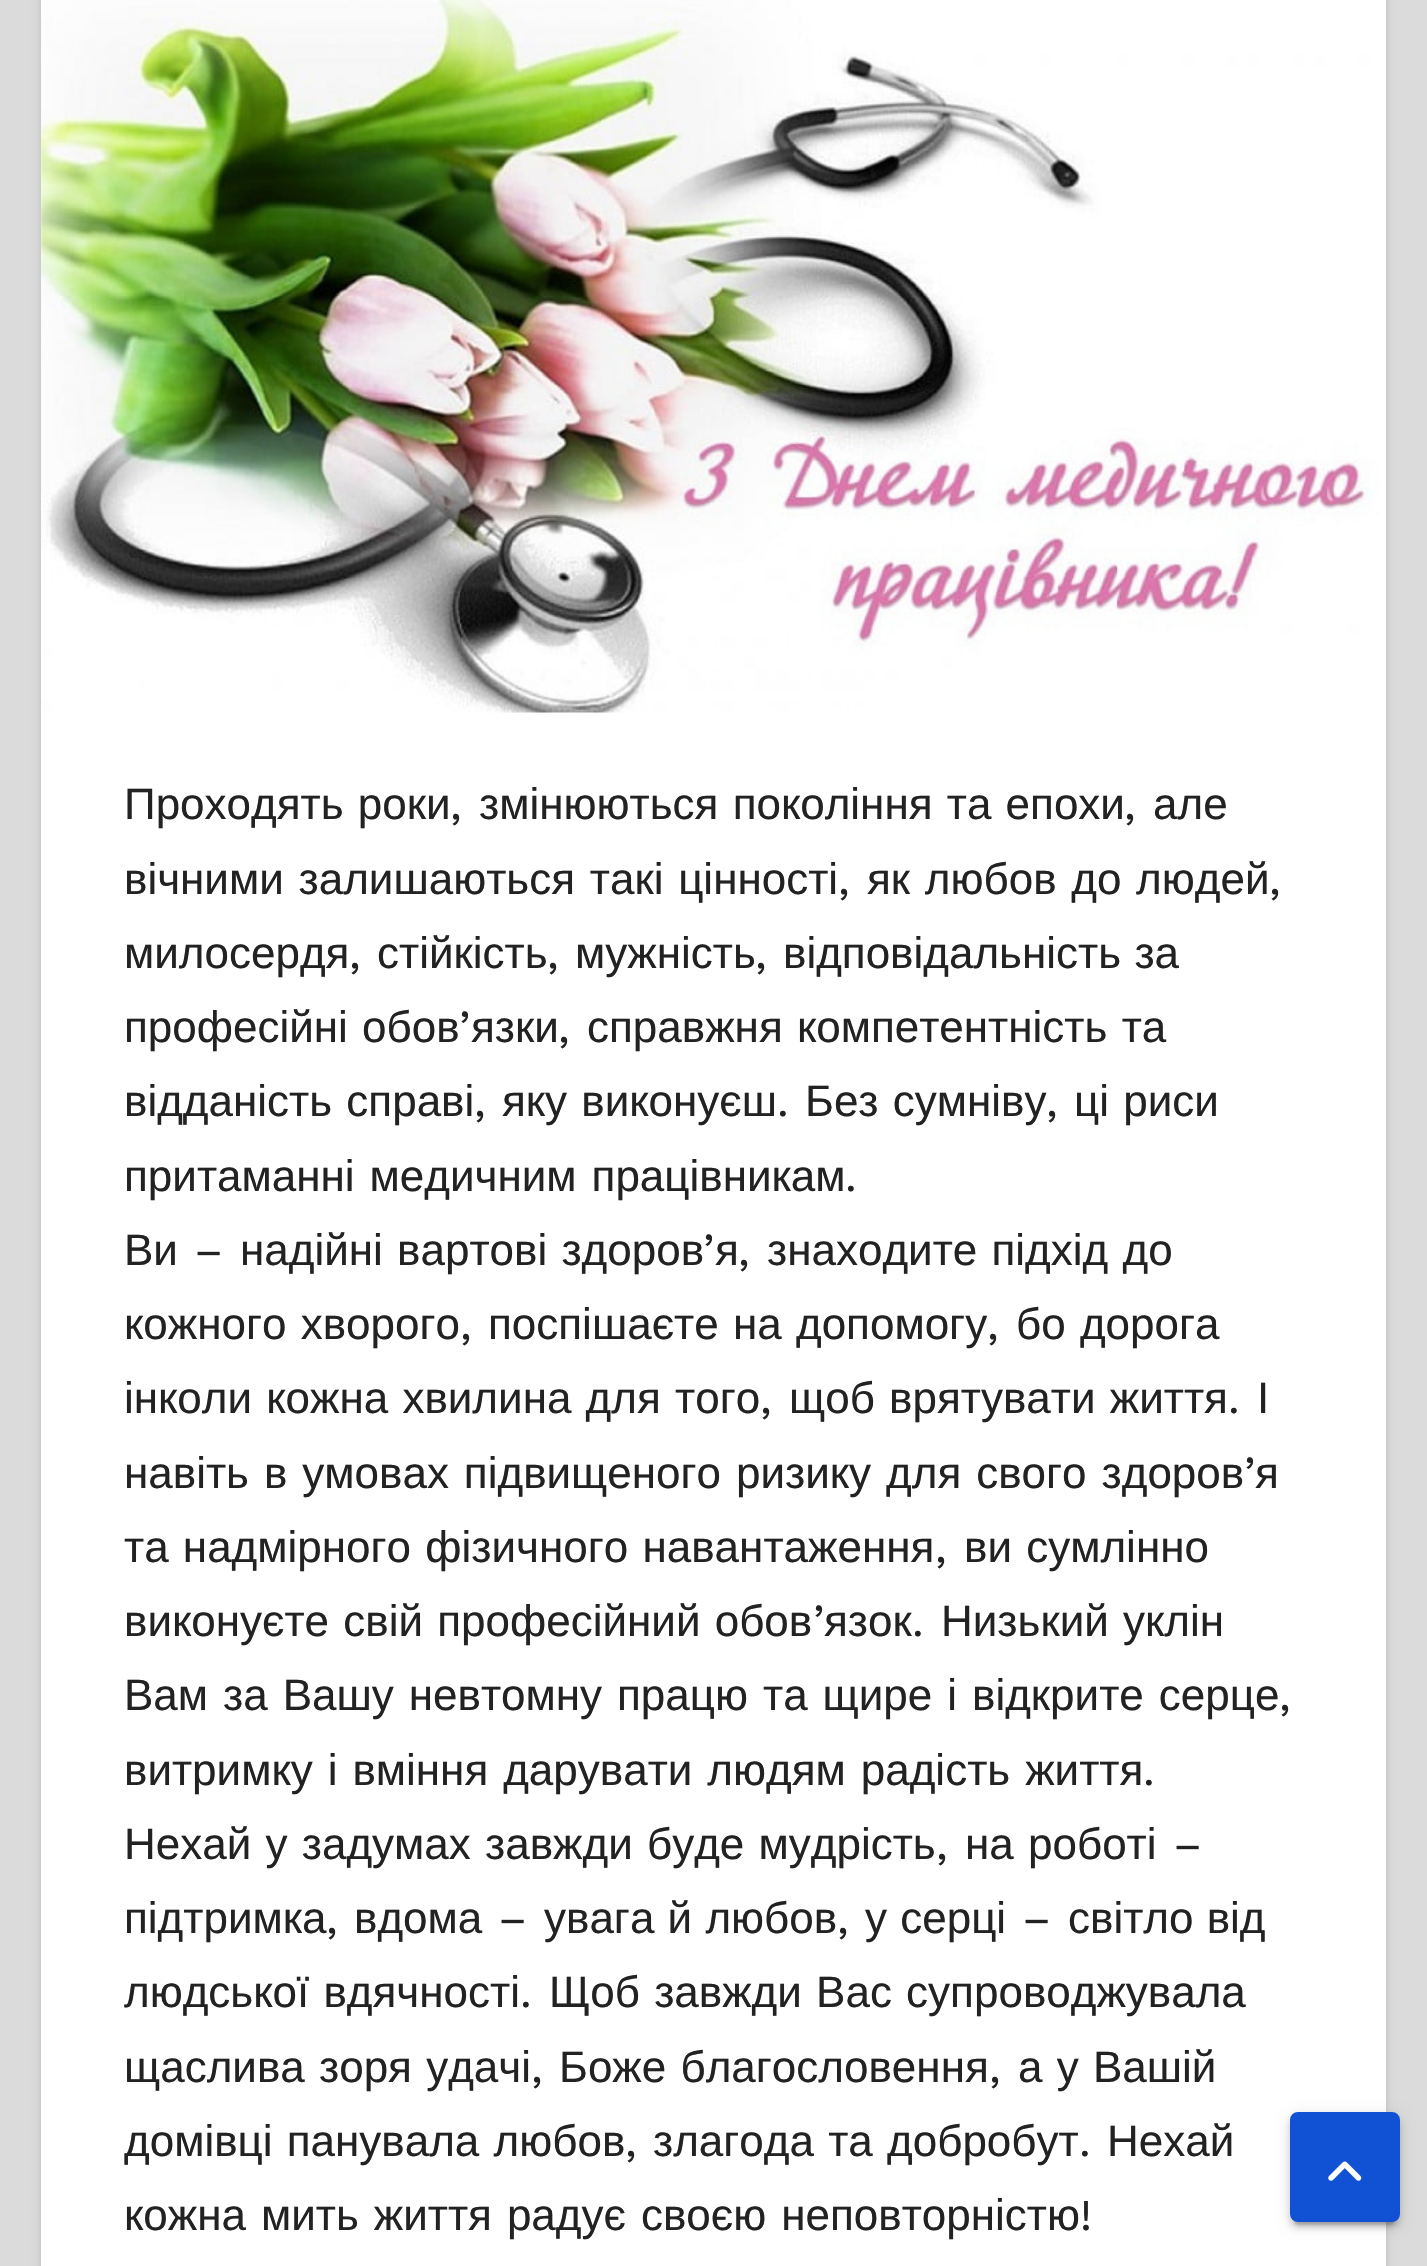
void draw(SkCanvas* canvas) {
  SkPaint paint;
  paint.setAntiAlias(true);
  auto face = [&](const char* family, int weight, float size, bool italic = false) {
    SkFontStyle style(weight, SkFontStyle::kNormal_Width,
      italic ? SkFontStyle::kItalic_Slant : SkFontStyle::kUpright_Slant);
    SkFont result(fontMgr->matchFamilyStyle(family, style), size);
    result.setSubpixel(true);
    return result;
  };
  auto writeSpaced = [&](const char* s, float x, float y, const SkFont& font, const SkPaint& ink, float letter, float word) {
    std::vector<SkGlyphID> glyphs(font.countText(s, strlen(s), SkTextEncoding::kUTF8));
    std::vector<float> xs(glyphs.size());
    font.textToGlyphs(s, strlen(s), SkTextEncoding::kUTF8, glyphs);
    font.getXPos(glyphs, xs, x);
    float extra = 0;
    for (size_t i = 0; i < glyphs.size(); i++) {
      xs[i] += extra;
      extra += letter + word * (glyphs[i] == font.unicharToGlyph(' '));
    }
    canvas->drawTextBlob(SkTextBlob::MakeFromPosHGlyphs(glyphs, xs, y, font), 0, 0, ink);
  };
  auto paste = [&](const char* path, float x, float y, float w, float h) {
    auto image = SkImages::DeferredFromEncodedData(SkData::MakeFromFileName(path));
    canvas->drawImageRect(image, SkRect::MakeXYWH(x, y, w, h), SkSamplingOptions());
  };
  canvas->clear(0xffdbdbdb);
  paint.setColor(0x26000000);
  paint.setMaskFilter(SkMaskFilter::MakeBlur(kNormal_SkBlurStyle, 4));
  canvas->drawRect(SkRect::MakeXYWH(41, -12, 1345, 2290), paint);
  paint.setMaskFilter(nullptr);
  paint.setColor(0xffffffff);
  canvas->drawRect(SkRect::MakeXYWH(41, 0, 1345, 2266), paint);
  paste("img/1.png", 41, 0, 1339, 713);
  paint.setColor(0x1f000000);
  paint.setMaskFilter(SkMaskFilter::MakeBlur(kNormal_SkBlurStyle, 7));
  canvas->drawRoundRect(SkRect::MakeXYWH(1290, 2115, 110, 110), 8, 8, paint);
  paint.setMaskFilter(nullptr);
  paint.setColor(0x33000000);
  paint.setMaskFilter(SkMaskFilter::MakeBlur(kNormal_SkBlurStyle, 1.5f));
  canvas->drawRoundRect(SkRect::MakeXYWH(1295, 2126, 99, 99), 3, 3, paint);
  paint.setMaskFilter(nullptr);
  paint.setColor(0x24000000);
  paint.setMaskFilter(SkMaskFilter::MakeBlur(kNormal_SkBlurStyle, 3));
  canvas->drawRoundRect(SkRect::MakeXYWH(1290, 2118, 110, 110), 8, 8, paint);
  paint.setMaskFilter(nullptr);
  paint.setColor(0xff1151d3);
  canvas->drawRoundRect(SkRect::MakeXYWH(1293, 2115, 104, 104), 5, 5, paint);
  paint.setStroke(true);
  paint.setStrokeWidth(6);
  canvas->drawRoundRect(SkRect::MakeXYWH(1293, 2115, 104, 104), 5, 5, paint);
  paste("img/2.png", 1328, 2161, 34, 20);
  auto f0 = face("Liberation Sans", 400, 44);
  paint.setStroke(false);
  paint.setColor(0xff222222);
  writeSpaced("Проходять роки", 124, 819, f0, paint, 0, 2);
  auto f1 = face("Work Sans", 400, 44);
  canvas->drawString(",", 450, 819, f1, paint);
  writeSpaced("змінюються покоління та епохи", 479, 819, f0, paint, 0, 2);
  canvas->drawString(",", 1124, 819, f1, paint);
  canvas->drawString("але", 1153, 819, f0, paint);
  writeSpaced("вічними залишаються такі цінності", 124, 894, f0, paint, 0, 2.5f);
  canvas->drawString(",", 838, 894, f1, paint);
  writeSpaced("як любов до людей", 867, 894, f0, paint, 0, 2.5f);
  canvas->drawString(",", 1269, 894, f1, paint);
  canvas->drawString("милосердя", 124, 968, f0, paint);
  canvas->drawString(",", 349, 968, f1, paint);
  canvas->drawString("стійкість", 377, 968, f0, paint);
  canvas->drawString(",", 547, 968, f1, paint);
  canvas->drawString("мужність", 575, 968, f0, paint);
  canvas->drawString(",", 755, 968, f1, paint);
  writeSpaced("відповідальність за", 783, 968, f0, paint, 0, 1);
  writeSpaced("професійні обов", 124, 1042, f0, paint, 0, 2);
  canvas->drawString("’", 459, 1042, f1, paint);
  canvas->drawString("язки", 471, 1042, f0, paint);
  canvas->drawString(",", 558, 1042, f1, paint);
  writeSpaced("справжня компетентність та", 587, 1042, f0, paint, 0, 2);
  writeSpaced("відданість справі", 124, 1116, f0, paint, 0, 2);
  canvas->drawString(",", 474, 1116, f1, paint);
  writeSpaced("яку виконуєш", 502, 1116, f0, paint, 0, 2);
  canvas->drawString(".", 777, 1116, f1, paint);
  writeSpaced("Без сумніву", 805, 1116, f0, paint, 0, 2);
  canvas->drawString(",", 1046, 1116, f1, paint);
  writeSpaced("ці риси", 1074, 1116, f0, paint, 0, 2);
  writeSpaced("притаманні медичним працівникам", 124, 1191, f0, paint, 0, 2.75f);
  canvas->drawString(".", 845, 1191, f1, paint);
  canvas->drawString("Ви", 124, 1265, f0, paint);
  canvas->drawString("–", 194, 1265, f1, paint);
  writeSpaced("надійні вартові здоров", 240, 1265, f0, paint, 0, 2);
  canvas->drawString("’", 703, 1265, f1, paint);
  canvas->drawString("я", 715, 1265, f0, paint);
  writeSpaced("знаходите підхід до", 767, 1265, f0, paint, 0, 2);
  canvas->drawString(",", 738, 1265, f1, paint);
  writeSpaced("кожного хворого", 124, 1339, f0, paint, 0, 2);
  canvas->drawString(",", 460, 1339, f1, paint);
  writeSpaced("поспішаєте на допомогу", 488, 1339, f0, paint, 0, 2);
  canvas->drawString(",", 987, 1339, f1, paint);
  writeSpaced("бо дорога", 1016, 1339, f0, paint, 0, 2);
  writeSpaced("інколи кожна хвилина для того", 124, 1413, f0, paint, 0, 2);
  canvas->drawString(",", 760, 1413, f1, paint);
  writeSpaced("щоб врятувати життя", 789, 1413, f0, paint, 0, 2);
  canvas->drawString(".", 1228, 1413, f1, paint);
  canvas->drawString("І", 1257, 1413, f0, paint);
  writeSpaced("навіть в умовах підвищеного ризику для свого здоров", 124, 1488, f0, paint, 0, 2.75f);
  canvas->drawString("’", 1244, 1488, f1, paint);
  canvas->drawString("я", 1255, 1488, f0, paint);
  writeSpaced("та надмірного фізичного навантаження", 124, 1562, f0, paint, 0, 2);
  canvas->drawString(",", 935, 1562, f1, paint);
  writeSpaced("ви сумлінно", 964, 1562, f0, paint, 0, 2);
  writeSpaced("виконуєте свій професійний обов", 124, 1636, f0, paint, 0, 2);
  canvas->drawString("’", 813, 1636, f1, paint);
  canvas->drawString("язок", 824, 1636, f0, paint);
  canvas->drawString(".", 912, 1636, f1, paint);
  writeSpaced("Низький уклін", 941, 1636, f0, paint, 0, 2);
  writeSpaced("Вам за Вашу невтомну працю та щире і відкрите серце", 124, 1710, f0, paint, 0, 2.75f);
  canvas->drawString(",", 1279, 1710, f1, paint);
  writeSpaced("витримку і вміння дарувати людям радість життя", 124, 1785, f0, paint, 0, 2.75f);
  canvas->drawString(".", 1143, 1785, f1, paint);
  writeSpaced("Нехай у задумах завжди буде мудрість", 124, 1859, f0, paint, 0, 2);
  writeSpaced("на роботі", 965, 1859, f0, paint, 0, 2);
  canvas->drawString("–", 1173, 1859, f1, paint);
  canvas->drawString(",", 936, 1859, f1, paint);
  canvas->drawString("підтримка", 124, 1933, f0, paint);
  canvas->drawString("вдома", 354, 1933, f0, paint);
  canvas->drawString("–", 498, 1933, f1, paint);
  writeSpaced("увага й любов", 544, 1933, f0, paint, 0, 1);
  writeSpaced("у серці", 865, 1933, f0, paint, 0, 1);
  canvas->drawString("–", 1022, 1933, f1, paint);
  writeSpaced("світло від", 1068, 1933, f0, paint, 0, 1);
  canvas->drawString(",", 326, 1933, f1, paint);
  canvas->drawString(",", 837, 1933, f1, paint);
  writeSpaced("людської вдячності", 124, 2007, f0, paint, 0, 2);
  canvas->drawString(".", 520, 2007, f1, paint);
  writeSpaced("Щоб завжди Вас супроводжувала", 549, 2007, f0, paint, 0, 2);
  writeSpaced("щаслива зоря удачі", 124, 2082, f0, paint, 0, 2);
  canvas->drawString(",", 531, 2082, f1, paint);
  writeSpaced("Боже благословення", 559, 2082, f0, paint, 0, 2);
  canvas->drawString(",", 989, 2082, f1, paint);
  writeSpaced("а у Вашій", 1018, 2082, f0, paint, 0, 2);
  writeSpaced("домівці панувала любов", 124, 2156, f0, paint, 0, 2);
  canvas->drawString(",", 625, 2156, f1, paint);
  writeSpaced("злагода та добробут", 653, 2156, f0, paint, 0, 2);
  canvas->drawString(".", 1079, 2156, f1, paint);
  canvas->drawString("Нехай", 1107, 2156, f0, paint);
  writeSpaced("кожна мить життя радує своєю неповторністю", 124, 2230, f0, paint, 0, 2.75f);
  canvas->drawString("!", 1080, 2230, f1, paint);
}
